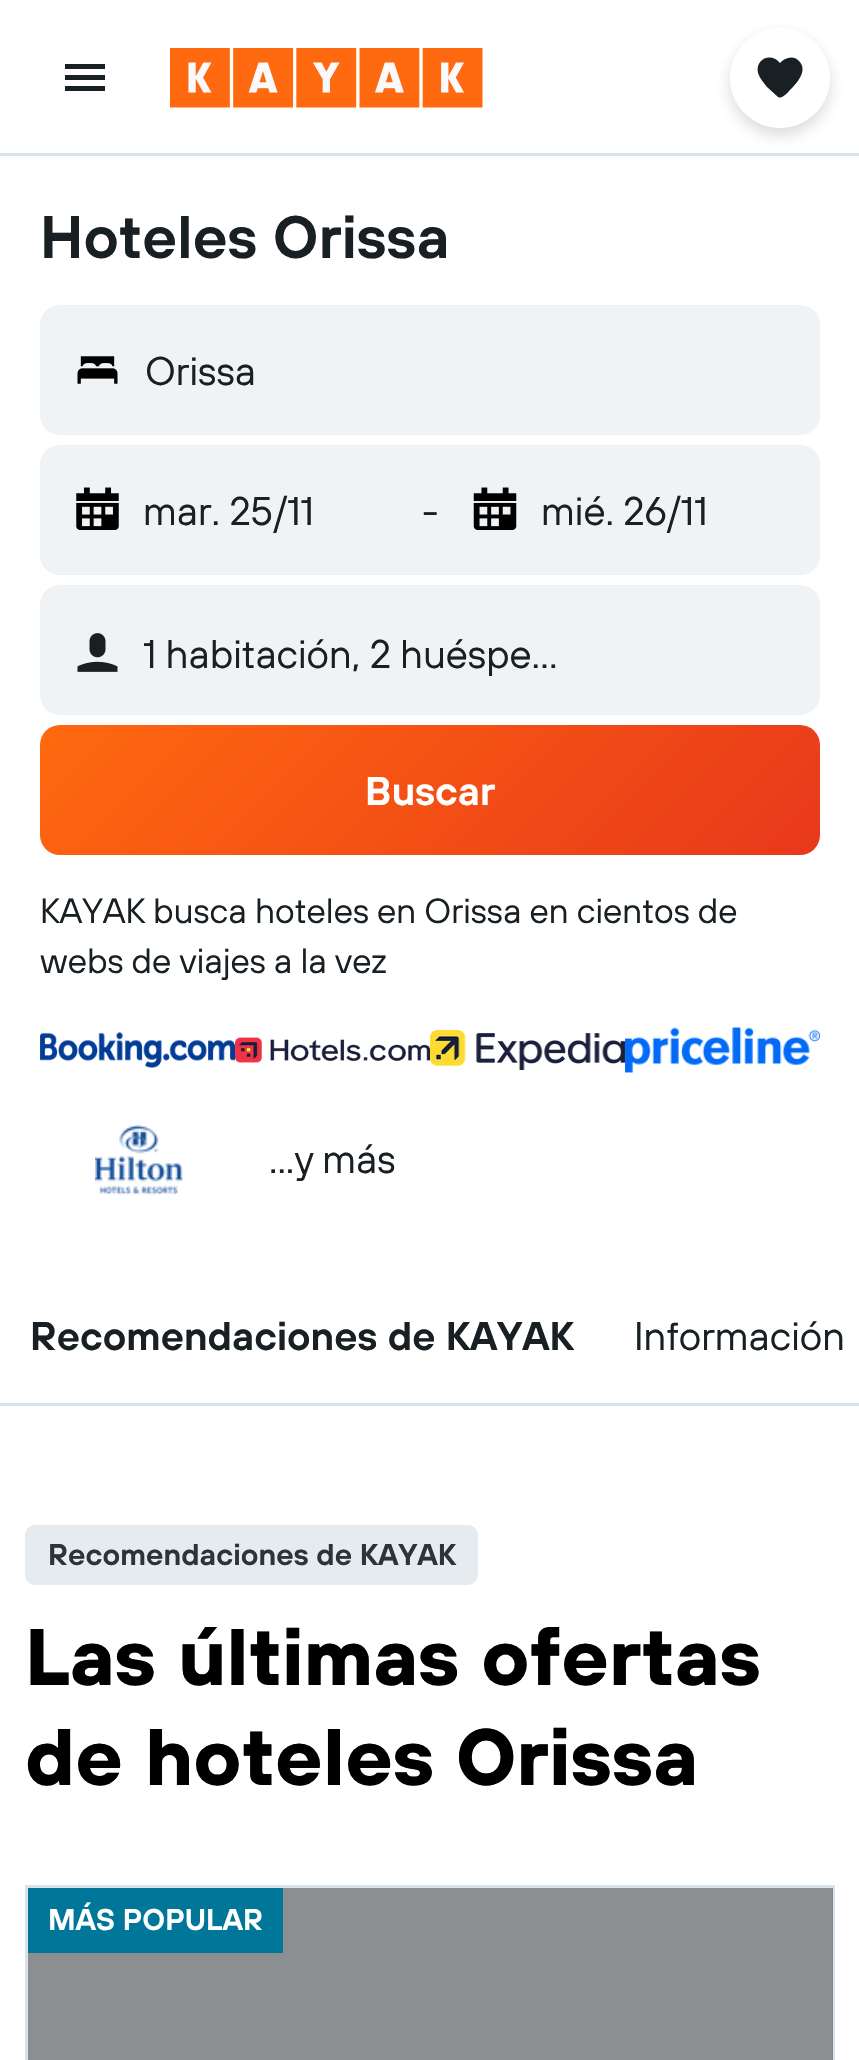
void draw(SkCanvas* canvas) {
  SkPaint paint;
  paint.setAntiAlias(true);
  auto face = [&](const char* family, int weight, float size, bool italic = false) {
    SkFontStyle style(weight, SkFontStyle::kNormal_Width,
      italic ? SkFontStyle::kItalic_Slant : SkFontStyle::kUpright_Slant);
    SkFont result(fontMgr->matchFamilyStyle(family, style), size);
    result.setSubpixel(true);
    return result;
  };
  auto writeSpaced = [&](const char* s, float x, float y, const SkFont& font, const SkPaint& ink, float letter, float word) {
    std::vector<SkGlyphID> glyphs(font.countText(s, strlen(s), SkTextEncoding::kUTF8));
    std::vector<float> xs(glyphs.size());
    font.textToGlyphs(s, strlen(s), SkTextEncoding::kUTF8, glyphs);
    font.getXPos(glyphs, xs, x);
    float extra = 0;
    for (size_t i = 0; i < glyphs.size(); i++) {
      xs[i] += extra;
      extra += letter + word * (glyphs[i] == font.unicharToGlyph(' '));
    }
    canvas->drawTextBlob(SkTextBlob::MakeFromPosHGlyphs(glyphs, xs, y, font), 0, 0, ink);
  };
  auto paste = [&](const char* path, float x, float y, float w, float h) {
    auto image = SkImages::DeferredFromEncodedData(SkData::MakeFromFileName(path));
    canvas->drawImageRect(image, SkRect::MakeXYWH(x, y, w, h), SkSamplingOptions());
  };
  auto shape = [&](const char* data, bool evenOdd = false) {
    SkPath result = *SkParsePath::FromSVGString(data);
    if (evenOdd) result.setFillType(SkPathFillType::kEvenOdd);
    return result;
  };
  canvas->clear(0xffffffff);
  paint.setColor(0xffd9e2e8);
  canvas->drawRect(SkRect::MakeXYWH(0, 153, 859, 3), paint);
  paint.setColor(0xff192024);
  canvas->drawPath(shape("M65 91H105V86H65ZM65 80H105V75H65ZM65 64V69H105V64Z"), paint);
  paste("img/1.png", 170, 48, 313, 60);
  paint.setColor(0x29192024);
  paint.setMaskFilter(SkMaskFilter::MakeBlur(kNormal_SkBlurStyle, 7.5f));
  canvas->drawRoundRect(SkRect::MakeXYWH(730, 35, 100, 100), 50, 50, paint);
  paint.setMaskFilter(nullptr);
  paint.setColor(0xffffffff);
  canvas->drawCircle(780, 78, 50, paint);
  paint.setColor(0xff192024);
  canvas->drawPath(shape("M799 61C794 55 785 57 780 63C771 52 755 59 758 73C760 79 764 83 767 87L778 97C782 100 789 91 791 89C798 82 808 70 799 61Z"), paint);
  paint.setColor(0xfff0f3f5);
  canvas->drawRoundRect(SkRect::MakeXYWH(41.5f, 306.5f, 777, 127), 18.5f, 18.5f, paint);
  paint.setStroke(true);
  paint.setStrokeWidth(3);
  canvas->drawRoundRect(SkRect::MakeXYWH(41.5f, 306.5f, 777, 127), 18.5f, 18.5f, paint);
  paste("img/2.png", 77, 356, 41, 28);
  paint.setStroke(false);
  canvas->drawRoundRect(SkRect::MakeXYWH(40, 445, 780, 130), 20, 20, paint);
  canvas->drawRoundRect(SkRect::MakeXYWH(40, 445, 383, 130), 20, 20, paint);
  paste("img/3.png", 76, 487, 43, 43);
  canvas->drawRoundRect(SkRect::MakeXYWH(438, 445, 382, 130), 20, 20, paint);
  paste("img/4.png", 473, 487, 44, 43);
  canvas->drawRoundRect(SkRect::MakeXYWH(40, 585, 780, 130), 20, 20, paint);
  paste("img/5.png", 77, 633, 41, 39);
  {
    const SkColor colors[] = {0xffff690f, 0xffe8381b};
    const float stops[] = {0, 1};
    const SkPoint ends[] = {{202, 563}, {658, 1018}};
    paint.setShader(SkGradientShader::MakeLinear(ends, colors, stops, 2, SkTileMode::kClamp));
    paint.setAlpha(255);
  }
  canvas->drawRoundRect(SkRect::MakeXYWH(40, 725, 780, 130), 20, 20, paint);
  paste("img/6.png", 40, 1032, 195, 36);
  paste("img/7.png", 235, 1037, 195, 26);
  paste("img/8.png", 430, 1030, 195, 40);
  paste("img/9.png", 625, 1027, 195, 46);
  paste("img/10.png", 95, 1125, 88, 70);
  paint.setShader(nullptr);
  paint.setColor(0xffd9e2e8);
  canvas->drawRect(SkRect::MakeXYWH(0, 1403, 859, 3), paint);
  paint.setColor(0xffe6ebef);
  canvas->drawRoundRect(SkRect::MakeXYWH(26.5f, 1526.5f, 450, 57), 8.5f, 8.5f, paint);
  paint.setStroke(true);
  canvas->drawRoundRect(SkRect::MakeXYWH(26.5f, 1526.5f, 450, 57), 8.5f, 8.5f, paint);
  paint.setColor(0xffd9e2e8);
  canvas->drawRect(SkRect::MakeXYWH(26.5f, 1886.5f, 807, 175), paint);
  paint.setStroke(false);
  {
    const struct { float x, y, w, h; SkColor color; } items[] = {
      {28, 1888, 804, 172, 0x99d9e2e8},
      {28, 1888, 805, 172, 0x66000000},
      {28, 1888, 255, 65, 0xff007799},
    };
    for (auto [x, y, w, h, color] : items) {
      paint.setColor(color);
      canvas->drawRect(SkRect::MakeXYWH(x, y, w, h), paint);
    }
  }
  auto f0 = face("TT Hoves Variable", 600, 60);
  paint.setColor(0xff192024);
  canvas->drawString("Hoteles Orissa", 40, 258, f0, paint);
  auto f1 = face("TT Hoves Variable", 400, 40);
  {
    const struct { const char* s; float x, y; } items[] = {
      {"Orissa", 145, 385},
      {"mar. 25/11", 143, 525},
      {"-", 422, 525},
      {"mié. 26/11", 541, 525},
      {"1 habitación, 2 huéspe…", 143, 668},
    };
    for (auto [s, x, y] : items) {
      canvas->drawString(s, x, y, f1, paint);
    }
  }
  auto f2 = face("TT Hoves Variable", 600, 40);
  paint.setColor(0xffffffff);
  canvas->drawString("Buscar", 365, 805, f2, paint);
  auto f3 = face("TT Hoves Variable", 400, 35);
  paint.setColor(0xff192024);
  canvas->drawString("KAYAK busca hoteles en Orissa en cientos de", 40, 923, f3, paint);
  canvas->drawString("webs de viajes a la vez", 40, 973, f3, paint);
  writeSpaced("...y más", 269, 1173, f1, paint, 0, -1);
  canvas->drawString("Recomendaciones de KAYAK", 30, 1350, f2, paint);
  canvas->drawString("Información", 634, 1350, f1, paint);
  auto f4 = face("TT Hoves Variable", 600, 30);
  paint.setColor(0xff2c3439);
  canvas->drawString("Recomendaciones de KAYAK", 48, 1565, f4, paint);
  auto f5 = face("TT Hoves Variable", 700, 80);
  paint.setColor(0xff000000);
  canvas->drawString("Las últimas ofertas", 25, 1685, f5, paint);
  canvas->drawString("de hoteles Orissa", 25, 1785, f5, paint);
  paint.setColor(0xffffffff);
  canvas->drawString("MÁS POPULAR", 48, 1930, f4, paint);
}
